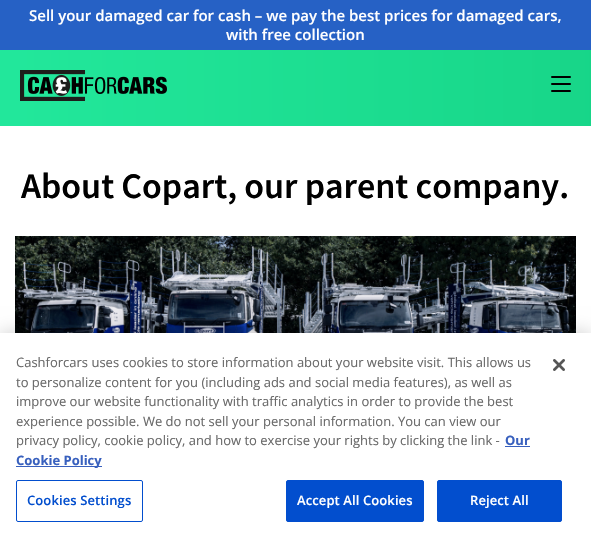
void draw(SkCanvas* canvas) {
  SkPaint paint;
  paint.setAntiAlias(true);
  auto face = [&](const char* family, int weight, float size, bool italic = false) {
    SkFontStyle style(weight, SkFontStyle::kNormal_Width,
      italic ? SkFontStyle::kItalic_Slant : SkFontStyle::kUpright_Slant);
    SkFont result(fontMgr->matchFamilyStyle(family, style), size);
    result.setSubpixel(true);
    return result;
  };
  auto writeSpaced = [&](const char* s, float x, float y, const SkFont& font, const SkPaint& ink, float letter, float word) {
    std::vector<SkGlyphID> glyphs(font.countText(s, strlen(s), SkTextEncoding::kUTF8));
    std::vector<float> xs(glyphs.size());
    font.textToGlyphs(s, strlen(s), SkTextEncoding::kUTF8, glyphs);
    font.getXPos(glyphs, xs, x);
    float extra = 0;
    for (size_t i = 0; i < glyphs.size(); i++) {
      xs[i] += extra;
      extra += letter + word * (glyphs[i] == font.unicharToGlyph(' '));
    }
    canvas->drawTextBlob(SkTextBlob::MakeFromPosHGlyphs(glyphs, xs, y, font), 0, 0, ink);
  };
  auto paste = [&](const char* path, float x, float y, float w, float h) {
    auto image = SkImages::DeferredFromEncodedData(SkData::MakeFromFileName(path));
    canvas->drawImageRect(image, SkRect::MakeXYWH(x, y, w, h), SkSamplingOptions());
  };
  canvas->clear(0xffffffff);
  paint.setColor(0xff2661c5);
  canvas->drawRect(SkRect::MakeXYWH(0, 0, 591, 50), paint);
  {
    const SkColor colors[] = {0xff24ea9e, 0xff1ada8d, 0xff16d386};
    const float stops[] = {0, 0.73f, 1};
    const SkPoint ends[] = {{-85, 88}, {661, 88}};
    paint.setShader(SkGradientShader::MakeLinear(ends, colors, stops, 3, SkTileMode::kClamp));
    paint.setAlpha(255);
  }
  canvas->drawRect(SkRect::MakeXYWH(0, 50, 591, 76), paint);
  paste("img/1.png", 20, 70, 147, 31);
  paint.setShader(nullptr);
  paint.setColor(0xff000000);
  canvas->drawRoundRect(SkRect::MakeXYWH(551, 83, 20, 2), 1, 1, paint);
  canvas->drawRoundRect(SkRect::MakeXYWH(551, 76, 20, 2), 1, 1, paint);
  canvas->drawRoundRect(SkRect::MakeXYWH(551, 90, 20, 2), 1, 1, paint);
  paste("img/2.png", 15, 236, 561, 97);
  paint.setColor(0x33000000);
  paint.setMaskFilter(SkMaskFilter::MakeBlur(kNormal_SkBlurStyle, 9));
  canvas->drawRect(SkRect::MakeXYWH(0, 333, 591, 204), paint);
  paint.setMaskFilter(nullptr);
  {
    const struct { float x, y, w, h; SkColor color; } items[] = {
      {0, 333, 591, 204, 0xffffffff},
      {505, 446, 25, 1, 0xff3860be},
      {16, 466, 86, 1, 0xff3860be},
    };
    for (auto [x, y, w, h, color] : items) {
      paint.setColor(color);
      canvas->drawRect(SkRect::MakeXYWH(x, y, w, h), paint);
    }
  }
  paint.setStroke(true);
  paint.setStrokeWidth(1);
  paint.setColor(0xff024ece);
  canvas->drawRoundRect(SkRect::MakeXYWH(16.5f, 480.5f, 126, 41), 1.5f, 1.5f, paint);
  paint.setStroke(false);
  canvas->drawRoundRect(SkRect::MakeXYWH(286.5f, 480.5f, 137, 41), 1.5f, 1.5f, paint);
  paint.setStroke(true);
  canvas->drawRoundRect(SkRect::MakeXYWH(286.5f, 480.5f, 137, 41), 1.5f, 1.5f, paint);
  paint.setStroke(false);
  canvas->drawRoundRect(SkRect::MakeXYWH(437.5f, 480.5f, 124, 41), 1.5f, 1.5f, paint);
  paint.setStroke(true);
  canvas->drawRoundRect(SkRect::MakeXYWH(437.5f, 480.5f, 124, 41), 1.5f, 1.5f, paint);
  paste("img/3.png", 553, 359, 12, 12);
  auto f0 = face("Open Sans", 600, 15);
  paint.setStroke(false);
  paint.setColor(0xffffffff);
  canvas->drawString("Sell your damaged car for cash – we pay the best prices for damaged cars,", 29, 21, f0, paint);
  canvas->drawString("with free collection", 226, 40, f0, paint);
  auto f1 = face("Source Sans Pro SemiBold", 600, 36);
  paint.setColor(0xff000000);
  canvas->drawString("About Copart, our parent company.", 21, 198, f1, paint);
  auto f2 = face("Open Sans", 400, 13);
  paint.setColor(0xff696969);
  {
    const struct { const char* s; float x, y; } items[] = {
      {"Cashforcars uses cookies to store information about your website visit. This allows us", 16, 367},
      {"to personalize content for you (including ads and social media features), as well as", 16, 387},
      {"improve our website functionality with traffic analytics in order to provide the best", 16, 406},
      {"experience possible. We do not sell your personal information. You can view our", 16, 426},
      {"privacy policy, cookie policy, and how to exercise your rights by clicking the link -", 16, 445},
    };
    for (auto [s, x, y] : items) {
      canvas->drawString(s, x, y, f2, paint);
    }
  }
  auto f3 = face("Open Sans", 700, 13);
  paint.setColor(0xff3860be);
  canvas->drawString("Our", 505, 445, f3, paint);
  canvas->drawString("Cookie Policy", 16, 465, f3, paint);
  auto f4 = face("Open Sans", 600, 13);
  paint.setColor(0xff024ece);
  writeSpaced("Cookies Settings", 27, 505, f4, paint, 0.1f, 0);
  paint.setColor(0xffffffff);
  writeSpaced("Accept All Cookies", 297, 505, f4, paint, 0.1f, 0);
  writeSpaced("Reject All", 470, 505, f4, paint, 0.1f, 0);
}
